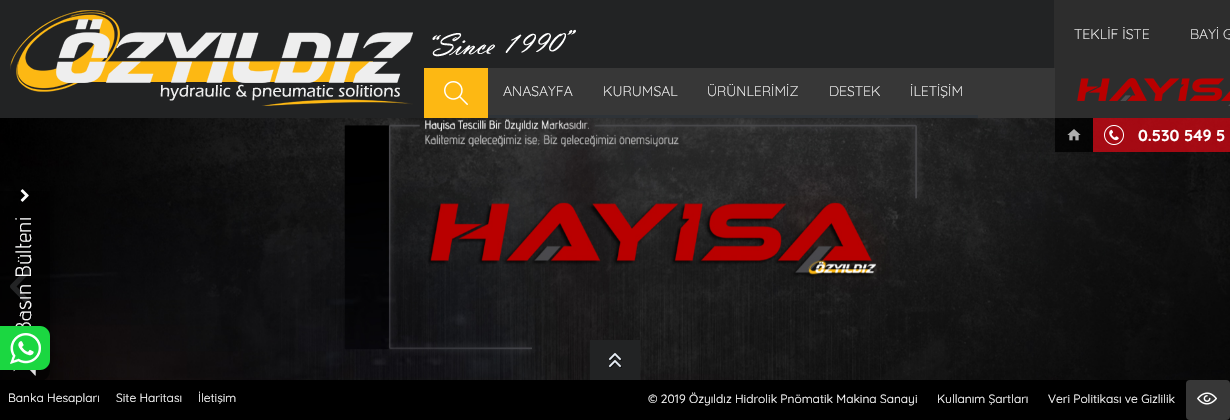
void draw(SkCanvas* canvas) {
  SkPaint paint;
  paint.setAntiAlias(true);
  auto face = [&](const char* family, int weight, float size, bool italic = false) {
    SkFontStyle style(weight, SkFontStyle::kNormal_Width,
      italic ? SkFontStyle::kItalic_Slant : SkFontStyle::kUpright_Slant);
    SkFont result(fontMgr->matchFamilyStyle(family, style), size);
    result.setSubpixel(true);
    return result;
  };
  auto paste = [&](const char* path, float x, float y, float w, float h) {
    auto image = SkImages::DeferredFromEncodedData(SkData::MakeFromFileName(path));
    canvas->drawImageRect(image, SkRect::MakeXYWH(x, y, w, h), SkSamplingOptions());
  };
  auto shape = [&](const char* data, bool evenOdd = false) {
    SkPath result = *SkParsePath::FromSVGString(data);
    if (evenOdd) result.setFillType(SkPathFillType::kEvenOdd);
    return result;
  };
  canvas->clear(0xffffffff);
  paint.setColor(0xff222324);
  canvas->drawRect(SkRect::MakeXYWH(0, 0, 1054, 118), paint);
  paste("img/1.png", 10, 10, 403, 96);
  paste("img/2.png", 432, 29, 144, 28);
  {
    const struct { float x, y, w, h; SkColor color; } items[] = {
      {1054, 0, 176, 68, 0xff2d2d2d},
      {488, 68, 567, 50, 0xff373737},
      {424, 68, 64, 50, 0xfffdb813},
    };
    for (auto [x, y, w, h, color] : items) {
      paint.setColor(color);
      canvas->drawRect(SkRect::MakeXYWH(x, y, w, h), paint);
    }
  }
  paste("img/3.png", 444, 81, 24, 24);
  paint.setColor(0xff2e3338);
  canvas->drawRect(SkRect::MakeXYWH(488, 115, 490, 3), paint);
  paint.setColor(0xff2d2d2d);
  canvas->drawRect(SkRect::MakeXYWH(1055, 68, 175, 50), paint);
  paste("img/4.png", 1077, 78, 153, 28);
  paste("img/6.png", 0, 118, 1230, 262);
  paste("img/5.png", 1055, 118, 175, 34);
  canvas->save();
  canvas->clipPath(shape("M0 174H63V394H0ZM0 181H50V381H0Z", true), true);
  paint.setColor(0x4d000000);
  paint.setMaskFilter(SkMaskFilter::MakeBlur(kNormal_SkBlurStyle, 3));
  canvas->drawRect(SkRect::MakeXYWH(3, 184, 50, 200), paint);
  paint.setMaskFilter(nullptr);
  canvas->restore();
  paste("img/8.png", 0, 191, 50, 189);
  paste("img/7.png", 10, 269, 21, 35);
  paste("img/9.png", 20, 189, 9, 13);
  paint.setColor(0xff222324);
  canvas->drawRect(SkRect::MakeXYWH(590, 340, 50, 40), paint);
  paste("img/10.png", 609, 353, 13, 15);
  paint.setColor(0xff000000);
  canvas->drawRect(SkRect::MakeXYWH(0, 380, 1230, 40), paint);
  paint.setColor(0xff373737);
  canvas->drawRoundRect(SkRect::MakeXYWH(1186, 380, 44, 40), 4, 4, paint);
  paste("img/11.png", 1197, 392, 20, 13);
  paint.setColor(0x4d000000);
  paint.setMaskFilter(SkMaskFilter::MakeBlur(kNormal_SkBlurStyle, 10));
  canvas->drawRoundRect(SkRect::MakeXYWH(3, 332, 44, 38), 7, 7, paint);
  paint.setMaskFilter(nullptr);
  paint.setColor(0xff1bd741);
  canvas->drawPath(shape("M0 326H40C45.5 326 50 330.5 50 336V360C50 365.5 45.5 370 40 370H0Z"), paint);
  paste("img/12.png", 10, 333, 31, 31);
  auto f0 = face("Quicksand", 300, 14);
  paint.setColor(0xffffffff);
  {
    const struct { const char* s; float x, y; } items[] = {
      {"TEKLİF İSTE", 1074, 39},
      {"BAYİ G", 1190, 39},
      {"ANASAYFA", 503, 96},
      {"KURUMSAL", 603, 96},
      {"ÜRÜNLERİMİZ", 707, 96},
      {"DESTEK", 829, 96},
      {"İLETİŞİM", 910, 96},
    };
    for (auto [s, x, y] : items) {
      canvas->drawString(s, x, y, f0, paint);
    }
  }
  auto f1 = face("Quicksand", 700, 16);
  canvas->drawString("0.530 549 5", 1138, 141, f1, paint);
  auto f2 = face("Quicksand", 400, 12);
  {
    const struct { const char* s; float x, y; } items[] = {
      {"Banka Hesapları", 8, 402},
      {"Site Haritası", 116, 402},
      {"İletişim", 198, 402},
      {"© 2019 Özyıldız Hidrolik Pnömatik Makina Sanayi", 648, 403},
      {"Kullanım Şartları", 937, 403},
      {"Veri Politikası ve Gizlilik", 1048, 403},
    };
    for (auto [s, x, y] : items) {
      canvas->drawString(s, x, y, f2, paint);
    }
  }
}
